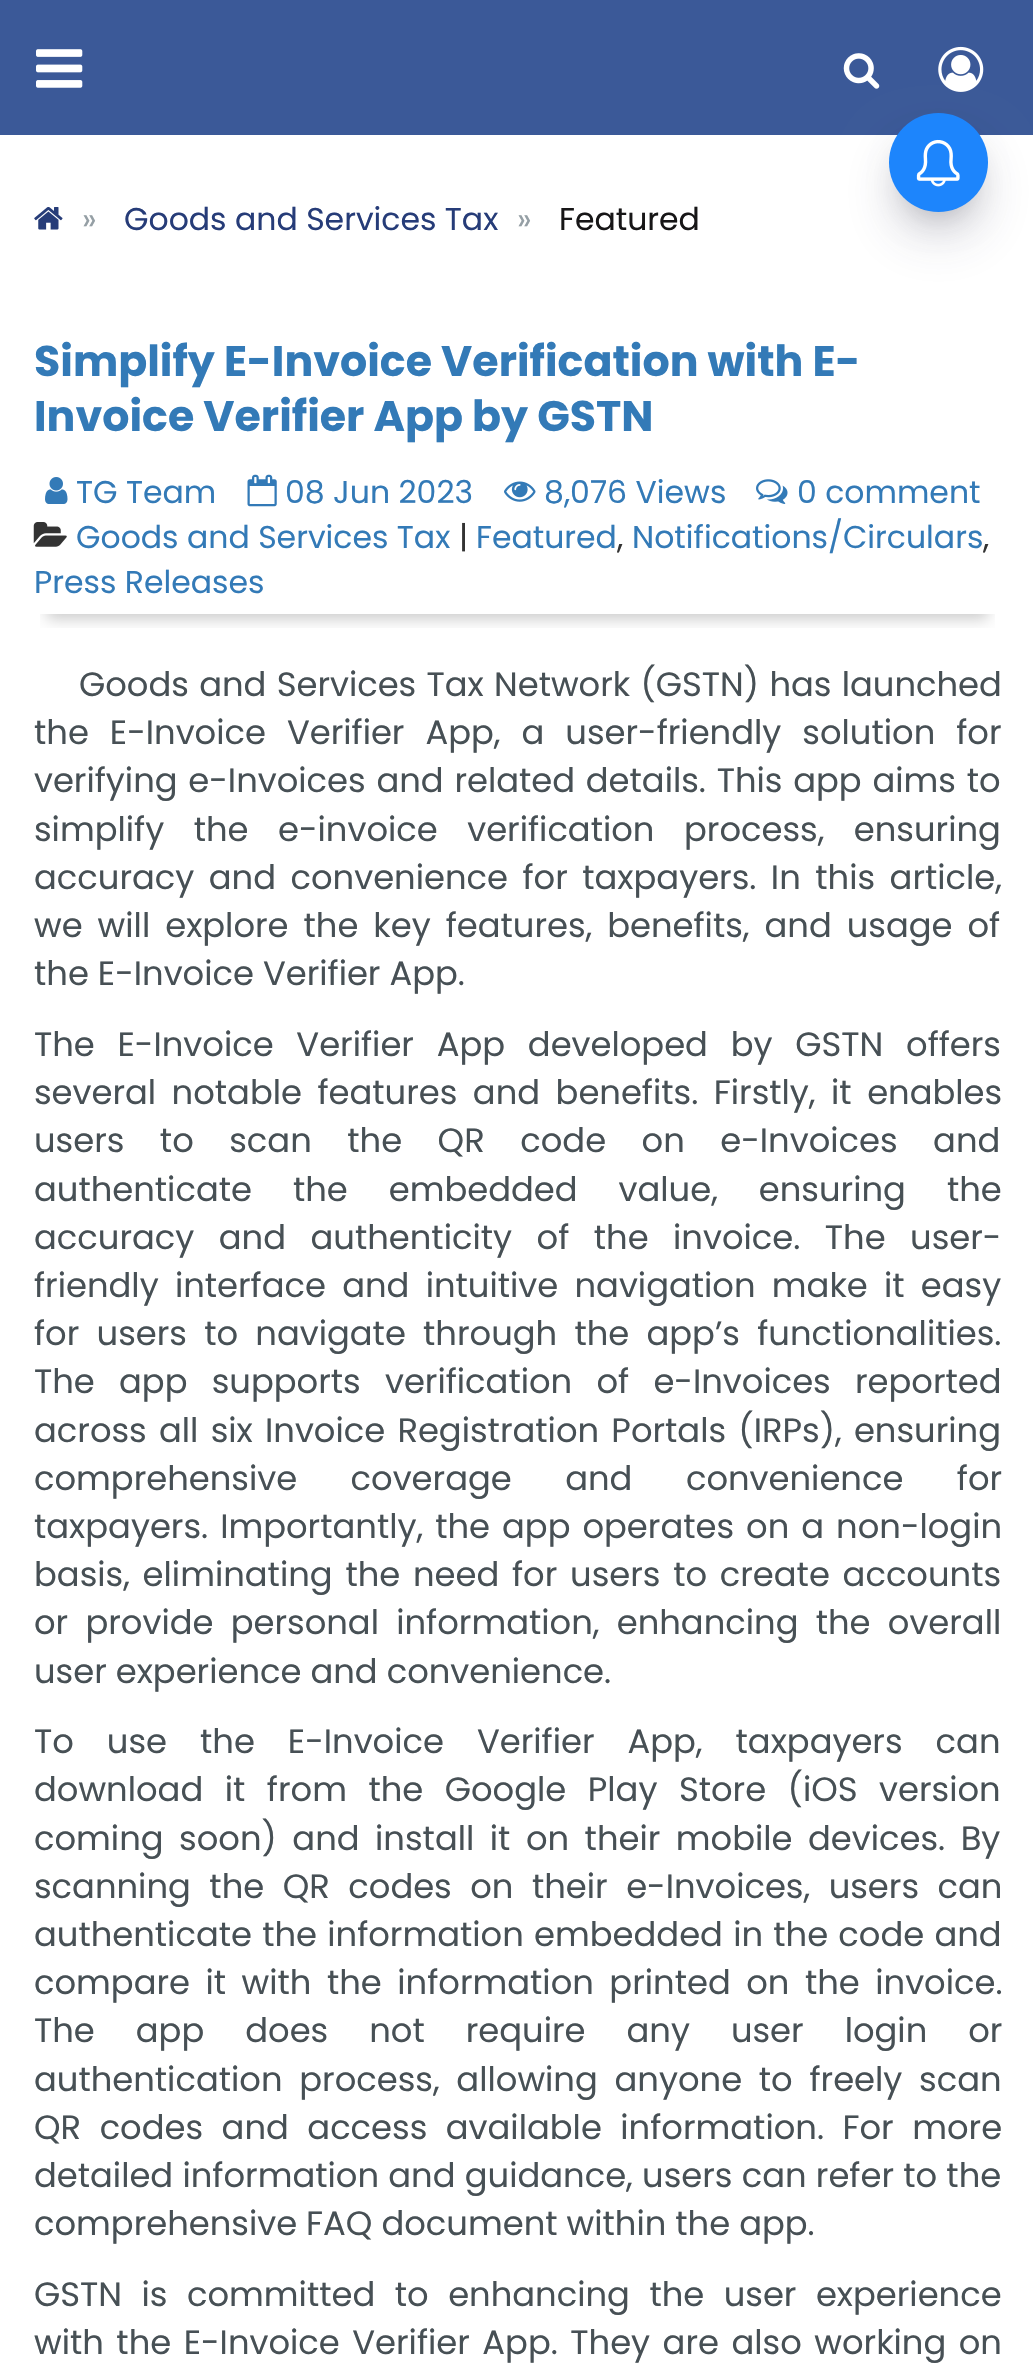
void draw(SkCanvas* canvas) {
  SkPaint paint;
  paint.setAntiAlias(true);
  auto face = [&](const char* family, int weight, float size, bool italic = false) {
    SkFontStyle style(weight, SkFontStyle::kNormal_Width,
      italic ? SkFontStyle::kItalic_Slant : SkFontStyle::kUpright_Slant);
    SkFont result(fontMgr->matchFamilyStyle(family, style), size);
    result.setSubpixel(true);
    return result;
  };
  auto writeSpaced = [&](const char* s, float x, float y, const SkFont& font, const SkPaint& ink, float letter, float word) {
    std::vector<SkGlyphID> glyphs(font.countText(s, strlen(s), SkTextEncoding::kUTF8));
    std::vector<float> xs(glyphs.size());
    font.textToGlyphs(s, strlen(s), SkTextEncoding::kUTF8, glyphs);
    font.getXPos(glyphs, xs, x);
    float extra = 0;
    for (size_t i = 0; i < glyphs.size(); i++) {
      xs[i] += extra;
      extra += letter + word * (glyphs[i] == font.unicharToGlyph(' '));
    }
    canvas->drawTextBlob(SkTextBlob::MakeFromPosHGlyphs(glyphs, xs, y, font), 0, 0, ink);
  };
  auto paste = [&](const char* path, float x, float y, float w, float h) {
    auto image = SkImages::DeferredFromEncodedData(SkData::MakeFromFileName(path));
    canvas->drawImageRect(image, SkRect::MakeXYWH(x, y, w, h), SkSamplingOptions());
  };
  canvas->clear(0xffffffff);
  paint.setColor(0xff3b5998);
  canvas->drawRect(SkRect::MakeXYWH(0, 0, 1033, 135), paint);
  paste("img/1.png", 36, 49, 47, 39);
  paste("img/2.png", 843, 53, 37, 36);
  paste("img/3.png", 938, 46, 46, 46);
  paste("img/4.png", 34, 207, 29, 23);
  paint.setColor(0x4d000000);
  paint.setMaskFilter(SkMaskFilter::MakeBlur(kNormal_SkBlurStyle, 18));
  canvas->drawRoundRect(SkRect::MakeXYWH(907, 149, 63, 63), 31.5f, 31.5f, paint);
  paint.setMaskFilter(nullptr);
  paint.setColor(0x4032325d);
  paint.setMaskFilter(SkMaskFilter::MakeBlur(kNormal_SkBlurStyle, 30.5f));
  canvas->drawRoundRect(SkRect::MakeXYWH(900, 153, 77, 77), 38.5f, 38.5f, paint);
  paint.setMaskFilter(nullptr);
  paint.setColor(0xff1d85fc);
  canvas->drawCircle(938.5f, 162.5f, 49.5f, paint);
  paste("img/5.png", 916, 139, 44, 48);
  canvas->save();
  canvas->clipRect(SkRect::MakeXYWH(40, 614, 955, 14));
  paint.setColor(0x33000000);
  paint.setMaskFilter(SkMaskFilter::MakeBlur(kNormal_SkBlurStyle, 7));
  canvas->drawRect(SkRect::MakeXYWH(47, 356, 941, 263), paint);
  paint.setMaskFilter(nullptr);
  canvas->restore();
  paste("img/6.png", 45, 477, 23, 27);
  paste("img/7.png", 247, 474, 30, 33);
  paste("img/8.png", 504, 481, 32, 21);
  paste("img/9.png", 756, 479, 32, 25);
  paste("img/10.png", 33, 522, 34, 25);
  auto f0 = face("Poppins", 400, 31.5f);
  paint.setColor(0xff959fa5);
  canvas->drawString("»", 82, 230, f0, paint);
  paint.setColor(0xff263c78);
  canvas->drawString("Goods and Services Tax", 124, 230, f0, paint);
  paint.setColor(0xff959fa5);
  canvas->drawString("»", 517, 230, f0, paint);
  paint.setColor(0xff171617);
  canvas->drawString("Featured", 559, 230, f0, paint);
  auto f1 = face("Poppins", 700, 42.75f);
  paint.setColor(0xff337ab7);
  canvas->drawString("Simplify E-Invoice Verification with E-", 34, 376, f1, paint);
  canvas->drawString("Invoice Verifier App by GSTN", 34, 431, f1, paint);
  {
    const struct { const char* s; float x, y; } items[] = {
      {"TG Team", 76, 503},
      {"08 Jun 2023", 285, 503},
      {"8,076 Views", 544, 503},
      {"0 comment", 797, 503},
      {"Goods and Services Tax", 76, 548},
    };
    for (auto [s, x, y] : items) {
      canvas->drawString(s, x, y, f0, paint);
    }
  }
  paint.setColor(0xff333333);
  canvas->drawString("|", 459, 548, f0, paint);
  paint.setColor(0xff337ab7);
  canvas->drawString("Featured", 476, 548, f0, paint);
  paint.setColor(0xff333333);
  canvas->drawString(",", 617, 548, f0, paint);
  paint.setColor(0xff337ab7);
  canvas->drawString("Notifications/Circulars", 632, 548, f0, paint);
  paint.setColor(0xff333333);
  canvas->drawString(",", 983, 548, f0, paint);
  paint.setColor(0xff337ab7);
  canvas->drawString("Press Releases", 34, 593, f0, paint);
  auto f2 = face("Poppins", 400, 33.75f);
  paint.setColor(0xff475055);
  writeSpaced("Goods and Services Tax Network (GSTN) has launched", 79, 696, f2, paint, 0, 1.25f);
  writeSpaced("the E-Invoice Verifier App, a user-friendly solution for", 34, 744, f2, paint, 0, 12);
  writeSpaced("verifying e-Invoices and related details. This app aims to", 34, 792, f2, paint, 0, 1.75f);
  writeSpaced("simplify the e-invoice verification process, ensuring", 34, 841, f2, paint, 0, 20.5f);
  writeSpaced("accuracy and convenience for taxpayers. In this article,", 34, 889, f2, paint, 0, 5.5f);
  writeSpaced("we will explore the key features, benefits, and usage of", 34, 937, f2, paint, 0, 6);
  canvas->drawString("the E-Invoice Verifier App.", 34, 985, f2, paint);
  writeSpaced("The E-Invoice Verifier App developed by GSTN offers", 34, 1056, f2, paint, 0, 13.75f);
  writeSpaced("several notable features and benefits. Firstly, it enables", 34, 1104, f2, paint, 0, 6.5f);
  writeSpaced("users to scan the QR code on e-Invoices and", 34, 1152, f2, paint, 0, 26.5f);
  writeSpaced("authenticate the embedded value, ensuring the", 34, 1201, f2, paint, 0, 32);
  writeSpaced("accuracy and authenticity of the invoice. The user-", 34, 1249, f2, paint, 0, 15.5f);
  writeSpaced("friendly interface and intuitive navigation make it easy", 34, 1297, f2, paint, 0, 7.25f);
  writeSpaced("for users to navigate through the app’s functionalities.", 34, 1345, f2, paint, 0, 8.25f);
  writeSpaced("The app supports verification of e-Invoices reported", 34, 1393, f2, paint, 0, 15.25f);
  writeSpaced("across all six Invoice Registration Portals (IRPs), ensuring", 34, 1442, f2, paint, 0, 3.25f);
  writeSpaced("comprehensive coverage and convenience for", 34, 1490, f2, paint, 0, 44.5f);
  writeSpaced("taxpayers. Importantly, the app operates on a non-login", 34, 1538, f2, paint, 0, 3);
  writeSpaced("basis, eliminating the need for users to create accounts", 34, 1586, f2, paint, 0, 3.75f);
  writeSpaced("or provide personal information, enhancing the overall", 34, 1634, f2, paint, 0, 8.25f);
  canvas->drawString("user experience and convenience.", 34, 1683, f2, paint);
  writeSpaced("To use the E-Invoice Verifier App, taxpayers can", 34, 1753, f2, paint, 0, 24);
  writeSpaced("download it from the Google Play Store (iOS version", 34, 1801, f2, paint, 0, 12.5f);
  writeSpaced("coming soon) and install it on their mobile devices. By", 34, 1850, f2, paint, 0, 6.5f);
  writeSpaced("scanning the QR codes on their e-Invoices, users can", 34, 1898, f2, paint, 0, 9.5f);
  writeSpaced("authenticate the information embedded in the code and", 34, 1946, f2, paint, 0, 1.25f);
  writeSpaced("compare it with the information printed on the invoice.", 34, 1994, f2, paint, 0, 6.5f);
  writeSpaced("The app does not require any user login or", 34, 2042, f2, paint, 0, 32);
  writeSpaced("authentication process, allowing anyone to freely scan", 34, 2091, f2, paint, 0, 7.75f);
  writeSpaced("QR codes and access available information. For more", 34, 2139, f2, paint, 0, 9.5f);
  writeSpaced("detailed information and guidance, users can refer to the", 34, 2187, f2, paint, 0, 0.25f);
  canvas->drawString("comprehensive FAQ document within the app.", 34, 2235, f2, paint);
  writeSpaced("GSTN is committed to enhancing the user experience", 34, 2306, f2, paint, 0, 10.5f);
  writeSpaced("with the E-Invoice Verifier App. They are also working on", 34, 2354, f2, paint, 0, 3.5f);
}
